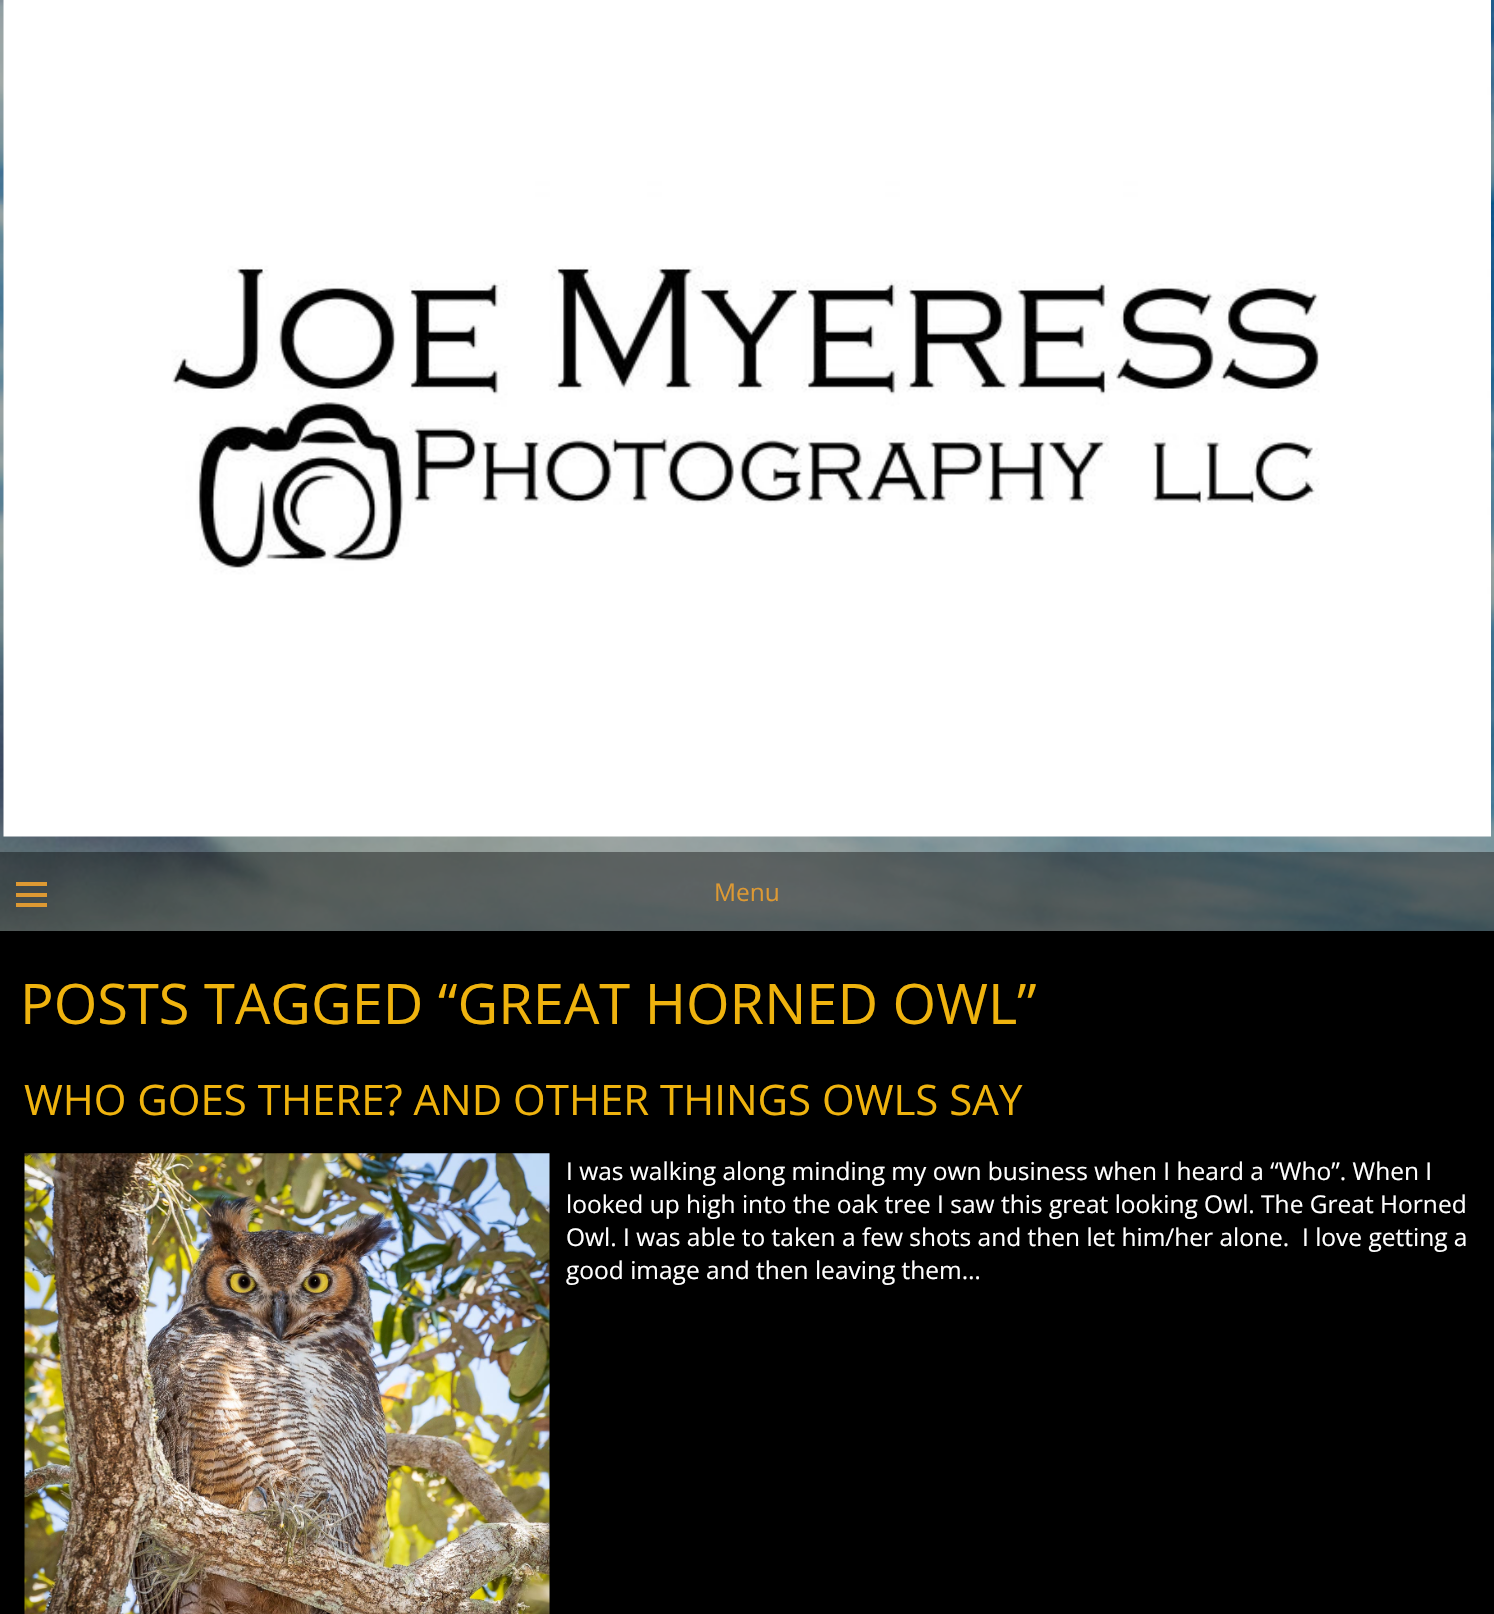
void draw(SkCanvas* canvas) {
  SkPaint paint;
  paint.setAntiAlias(true);
  auto face = [&](const char* family, int weight, float size, bool italic = false) {
    SkFontStyle style(weight, SkFontStyle::kNormal_Width,
      italic ? SkFontStyle::kItalic_Slant : SkFontStyle::kUpright_Slant);
    SkFont result(fontMgr->matchFamilyStyle(family, style), size);
    result.setSubpixel(true);
    return result;
  };
  auto paste = [&](const char* path, float x, float y, float w, float h) {
    auto image = SkImages::DeferredFromEncodedData(SkData::MakeFromFileName(path));
    canvas->drawImageRect(image, SkRect::MakeXYWH(x, y, w, h), SkSamplingOptions());
  };
  canvas->clear(0xff000000);
  paste("img/1.png", 0, 0, 1494, 931);
  paste("img/2.png", 3, 0, 1488, 837);
  {
    const struct { float x, y, w, h; SkColor color; } items[] = {
      {0, 852, 1494, 79, 0x66000000},
      {16, 903, 31, 4, 0xffdd9933},
      {16, 893, 31, 4, 0xffdd9933},
      {16, 882, 31, 4, 0xffdd9933},
    };
    for (auto [x, y, w, h, color] : items) {
      paint.setColor(color);
      canvas->drawRect(SkRect::MakeXYWH(x, y, w, h), paint);
    }
  }
  paste("img/3.png", 24, 1153, 526, 461);
  auto f0 = face("Open Sans", 400, 24.5f);
  canvas->drawString("Menu", 714, 901, f0, paint);
  auto f1 = face("Open Sans", 400, 56);
  paint.setColor(0xffefb30e);
  canvas->drawString("POSTS TAGGED “GREAT HORNED OWL”", 20, 1024, f1, paint);
  auto f2 = face("Open Sans", 400, 42);
  canvas->drawString("WHO GOES THERE? AND OTHER THINGS OWLS SAY", 24, 1115, f2, paint);
  paint.setColor(0xffffffff);
  {
    const struct { const char* s; float x, y; } items[] = {
      {"I was walking along minding my own business when I heard a “Who”. When I", 566, 1180},
      {"looked up high into the oak tree I saw this great looking Owl. The Great Horned", 566, 1213},
      {"Owl. I was able to taken a few shots and then let him/her alone.  I love getting a", 566, 1246},
      {"good image and then leaving them…", 566, 1279},
    };
    for (auto [s, x, y] : items) {
      canvas->drawString(s, x, y, f0, paint);
    }
  }
}
